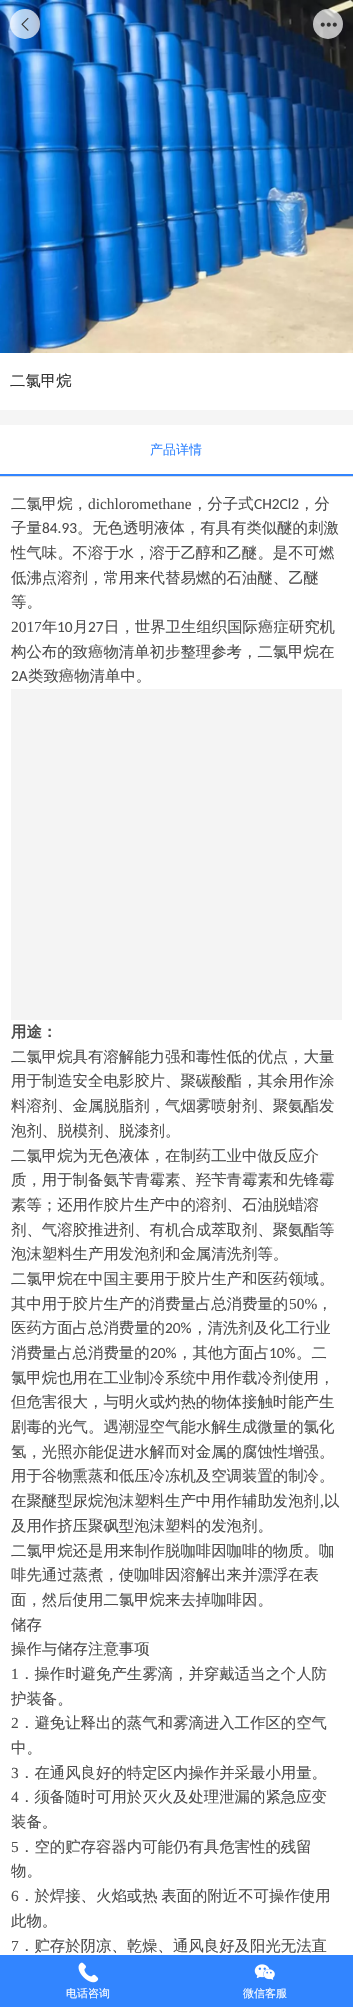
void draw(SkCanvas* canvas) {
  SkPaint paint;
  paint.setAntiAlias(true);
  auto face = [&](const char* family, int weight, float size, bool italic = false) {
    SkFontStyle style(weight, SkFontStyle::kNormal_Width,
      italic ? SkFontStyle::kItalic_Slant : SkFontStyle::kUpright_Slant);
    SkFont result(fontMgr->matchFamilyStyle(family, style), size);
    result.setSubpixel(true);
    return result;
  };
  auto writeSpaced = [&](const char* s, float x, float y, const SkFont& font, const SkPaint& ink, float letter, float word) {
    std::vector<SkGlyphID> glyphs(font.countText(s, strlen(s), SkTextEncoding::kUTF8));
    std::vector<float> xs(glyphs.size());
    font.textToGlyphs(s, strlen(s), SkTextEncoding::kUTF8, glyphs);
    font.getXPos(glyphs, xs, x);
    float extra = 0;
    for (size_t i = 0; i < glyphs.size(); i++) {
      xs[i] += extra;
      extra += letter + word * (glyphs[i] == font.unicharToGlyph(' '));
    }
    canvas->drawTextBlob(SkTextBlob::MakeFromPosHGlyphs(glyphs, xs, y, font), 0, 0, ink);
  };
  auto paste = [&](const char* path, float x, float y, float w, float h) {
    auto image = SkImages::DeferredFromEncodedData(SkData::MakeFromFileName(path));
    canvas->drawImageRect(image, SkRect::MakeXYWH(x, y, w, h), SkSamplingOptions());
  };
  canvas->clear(0xffffffff);
  paste("img/3.png", 0, 0, 353, 353);
  paint.setColor(0xb3ffffff);
  canvas->drawCircle(25, 24, 15, paint);
  paste("img/1.png", 21, 17, 8, 14);
  canvas->drawCircle(328, 24, 15, paint);
  paste("img/2.png", 320, 22, 17, 5);
  {
    const struct { float x, y, w, h; SkColor color; } items[] = {
      {0, 410, 353, 15, 0xfff5f5f5},
      {0, 476, 353, 1, 0xffdddddd},
      {0, 474, 353, 2, 0xff3285ff},
      {11, 689, 331, 331, 0xfff4f4f4},
      {0, 1955, 353, 52, 0xff3285ff},
    };
    for (auto [x, y, w, h, color] : items) {
      paint.setColor(color);
      canvas->drawRect(SkRect::MakeXYWH(x, y, w, h), paint);
    }
  }
  paste("img/4.png", 78, 1962, 21, 21);
  paste("img/5.png", 254, 1964, 21, 16);
  auto f0 = face("WenQuanYi Zen Hei", 500, 15.4f);
  paint.setColor(0xff333333);
  canvas->drawString("二氯甲烷", 10, 386, f0, paint);
  auto f1 = face("WenQuanYi Zen Hei", 500, 13);
  paint.setColor(0xff3285ff);
  canvas->drawString("产品详情", 150, 454, f1, paint);
  paint.setColor(0xff4e4e4e);
  canvas->drawString("二氯甲烷，", 11, 509, f0, paint);
  auto f2 = face("Liberation Serif", 400, 15.4f);
  canvas->drawString("dichloromethane", 88, 509, f2, paint);
  canvas->drawString("，分子式", 192, 509, f0, paint);
  auto f3 = face("Carlito", 400, 15.4f);
  canvas->drawString("CH2Cl2", 254, 509, f3, paint);
  canvas->drawString("，分", 299, 509, f0, paint);
  canvas->drawString("子量", 11, 533, f0, paint);
  canvas->drawString("84.93", 42, 533, f3, paint);
  {
    const struct { const char* s; float x, y; } items[] = {
      {"。无色透明液体，有具有类似醚的刺激", 77, 533},
      {"性气味。不溶于水，溶于乙醇和乙醚。是不可燃", 11, 558},
      {"低沸点溶剂，常用来代替易燃的石油醚、乙醚", 11, 583},
      {"等。", 11, 607},
    };
    for (auto [s, x, y] : items) {
      canvas->drawString(s, x, y, f0, paint);
    }
  }
  canvas->drawString("2017", 11, 632, f2, paint);
  canvas->drawString("年", 42, 632, f0, paint);
  canvas->drawString("10", 57, 632, f3, paint);
  canvas->drawString("月", 73, 632, f0, paint);
  canvas->drawString("27", 88, 632, f3, paint);
  canvas->drawString("日，世界卫生组织国际癌症研究机", 104, 632, f0, paint);
  canvas->drawString("构公布的致癌物清单初步整理参考，二氯甲烷在", 11, 657, f0, paint);
  canvas->drawString("2A", 11, 681, f3, paint);
  canvas->drawString("类致癌物清单中。", 28, 681, f0, paint);
  auto f4 = face("WenQuanYi Zen Hei", 700, 15.4f);
  canvas->drawString("用途：", 11, 1037, f4, paint);
  {
    const struct { const char* s; float x, y; } items[] = {
      {"二氯甲烷具有溶解能力强和毒性低的优点，大量", 11, 1062},
      {"用于制造安全电影胶片、聚碳酸酯，其余用作涂", 11, 1086},
      {"料溶剂、金属脱脂剂，气烟雾喷射剂、聚氨酯发", 11, 1111},
      {"泡剂、脱模剂、脱漆剂。", 11, 1136},
      {"二氯甲烷为无色液体，在制药工业中做反应介", 11, 1161},
      {"质，用于制备氨苄青霉素、羟苄青霉素和先锋霉", 11, 1185},
      {"素等；还用作胶片生产中的溶剂、石油脱蜡溶", 11, 1210},
      {"剂、气溶胶推进剂、有机合成萃取剂、聚氨酯等", 11, 1235},
      {"泡沫塑料生产用发泡剂和金属清洗剂等。", 11, 1259},
      {"二氯甲烷在中国主要用于胶片生产和医药领域。", 11, 1284},
      {"其中用于胶片生产的消费量占总消费量的", 11, 1309},
    };
    for (auto [s, x, y] : items) {
      canvas->drawString(s, x, y, f0, paint);
    }
  }
  canvas->drawString("50%", 289, 1309, f2, paint);
  canvas->drawString("，", 317, 1309, f0, paint);
  canvas->drawString("医药方面占总消费量的", 11, 1333, f0, paint);
  canvas->drawString("20%", 165, 1333, f3, paint);
  canvas->drawString("，清洗剂及化工行业", 192, 1333, f0, paint);
  canvas->drawString("消费量占总消费量的", 11, 1358, f0, paint);
  canvas->drawString("20%", 150, 1358, f3, paint);
  canvas->drawString("，其他方面占", 177, 1358, f0, paint);
  canvas->drawString("10%", 269, 1358, f3, paint);
  {
    const struct { const char* s; float x, y; } items[] = {
      {"。二", 296, 1358},
      {"氯甲烷也用在工业制冷系统中用作载冷剂使用，", 11, 1383},
      {"但危害很大，与明火或灼热的物体接触时能产生", 11, 1407},
      {"剧毒的光气。遇潮湿空气能水解生成微量的氯化", 11, 1432},
      {"氢，光照亦能促进水解而对金属的腐蚀性增强。", 11, 1457},
      {"用于谷物熏蒸和低压冷冻机及空调装置的制冷。", 11, 1481},
      {"在聚醚型尿烷泡沫塑料生产中用作辅助发泡剂", 11, 1506},
    };
    for (auto [s, x, y] : items) {
      canvas->drawString(s, x, y, f0, paint);
    }
  }
  canvas->drawString(",", 320, 1506, f2, paint);
  {
    const struct { const char* s; float x, y; } items[] = {
      {"以", 324, 1506},
      {"及用作挤压聚砜型泡沫塑料的发泡剂。", 11, 1531},
      {"二氯甲烷还是用来制作脱咖啡因咖啡的物质。咖", 11, 1556},
      {"啡先通过蒸煮，使咖啡因溶解出来并漂浮在表", 11, 1580},
      {"面，然后使用二氯甲烷来去掉咖啡因。", 11, 1605},
      {"储存", 11, 1630},
      {"操作与储存注意事项", 11, 1654},
    };
    for (auto [s, x, y] : items) {
      canvas->drawString(s, x, y, f0, paint);
    }
  }
  canvas->drawString("1", 11, 1679, f2, paint);
  canvas->drawString("．操作时避免产生雾滴，并穿戴适当之个人防", 19, 1679, f0, paint);
  canvas->drawString("护装备。", 11, 1704, f0, paint);
  canvas->drawString("2", 11, 1728, f2, paint);
  canvas->drawString("．避免让释出的蒸气和雾滴进入工作区的空气", 19, 1728, f0, paint);
  canvas->drawString("中。", 11, 1753, f0, paint);
  canvas->drawString("3", 11, 1778, f2, paint);
  canvas->drawString("．在通风良好的特定区内操作并采最小用量。", 19, 1778, f0, paint);
  canvas->drawString("4", 11, 1802, f2, paint);
  canvas->drawString("．须备随时可用於灭火及处理泄漏的紧急应变", 19, 1802, f0, paint);
  canvas->drawString("装备。", 11, 1827, f0, paint);
  canvas->drawString("5", 11, 1852, f2, paint);
  canvas->drawString("．空的贮存容器内可能仍有具危害性的残留", 19, 1852, f0, paint);
  canvas->drawString("物。", 11, 1876, f0, paint);
  canvas->drawString("6", 11, 1901, f2, paint);
  writeSpaced("．於焊接、火焰或热 表面的附近不可操作使用", 19, 1901, f0, paint, 0, -1);
  canvas->drawString("此物。", 11, 1926, f0, paint);
  canvas->drawString("7", 11, 1951, f2, paint);
  canvas->drawString("．贮存於阴凉、乾燥、通风良好及阳光无法直", 19, 1951, f0, paint);
  auto f5 = face("WenQuanYi Zen Hei", 500, 11);
  paint.setColor(0xffffffff);
  canvas->drawString("电话咨询", 66, 1997, f5, paint);
  canvas->drawString("微信客服", 243, 1997, f5, paint);
}
